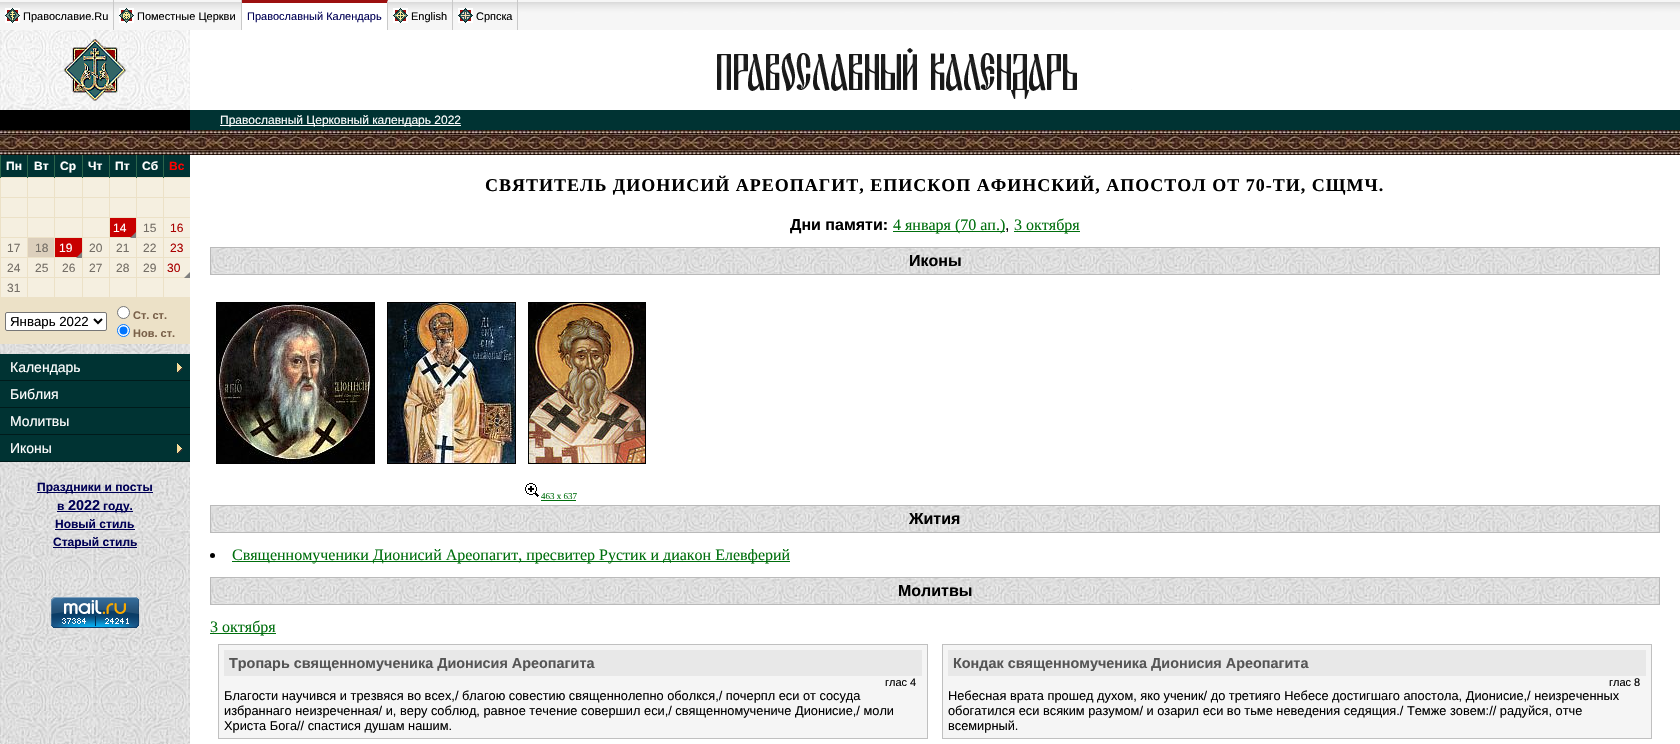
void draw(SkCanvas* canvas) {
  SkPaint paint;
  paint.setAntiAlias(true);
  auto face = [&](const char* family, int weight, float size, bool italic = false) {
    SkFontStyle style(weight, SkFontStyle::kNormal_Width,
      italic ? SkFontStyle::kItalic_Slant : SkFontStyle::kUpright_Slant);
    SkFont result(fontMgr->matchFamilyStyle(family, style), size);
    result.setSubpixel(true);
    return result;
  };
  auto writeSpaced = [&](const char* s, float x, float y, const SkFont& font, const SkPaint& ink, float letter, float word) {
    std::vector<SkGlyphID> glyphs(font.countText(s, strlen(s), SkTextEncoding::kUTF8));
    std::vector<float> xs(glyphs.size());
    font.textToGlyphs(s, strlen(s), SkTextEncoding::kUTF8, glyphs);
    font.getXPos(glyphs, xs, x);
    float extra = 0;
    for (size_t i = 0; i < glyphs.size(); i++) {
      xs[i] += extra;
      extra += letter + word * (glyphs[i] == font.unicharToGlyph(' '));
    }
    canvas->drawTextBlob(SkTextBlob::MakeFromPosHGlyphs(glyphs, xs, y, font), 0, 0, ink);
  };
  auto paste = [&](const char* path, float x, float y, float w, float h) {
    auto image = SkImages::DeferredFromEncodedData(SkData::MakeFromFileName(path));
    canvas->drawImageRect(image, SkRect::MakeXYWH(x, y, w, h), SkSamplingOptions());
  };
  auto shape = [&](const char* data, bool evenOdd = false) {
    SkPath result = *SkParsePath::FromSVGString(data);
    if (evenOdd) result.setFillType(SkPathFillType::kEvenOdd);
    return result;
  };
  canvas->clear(0xffffffff);
  paste("img/1.png", 0, 30, 190, 80);
  paste("img/2.png", 0, 0, 1680, 30);
  paint.setColor(0xffc9c9c9);
  canvas->drawRect(SkRect::MakeXYWH(113, 0, 1, 30), paint);
  paste("img/3.png", 5, 8, 15, 15);
  canvas->drawRect(SkRect::MakeXYWH(241, 0, 1, 30), paint);
  paste("img/4.png", 119, 8, 15, 15);
  paint.setColor(0xffffffff);
  canvas->drawRect(SkRect::MakeXYWH(242, 0, 146, 30), paint);
  paint.setColor(0xff9c1010);
  canvas->drawPath(shape("M242 0H388L387 3H242Z"), paint);
  paint.setColor(0xffc9c9c9);
  canvas->drawPath(shape("M388 0V30H387V3Z"), paint);
  canvas->drawRect(SkRect::MakeXYWH(452, 0, 1, 30), paint);
  paste("img/5.png", 393, 8, 15, 15);
  canvas->drawRect(SkRect::MakeXYWH(517, 0, 1, 30), paint);
  paste("img/6.png", 458, 8, 15, 15);
  paste("img/7.png", 64, 39, 62, 62);
  paste("img/8.png", 717, 48, 415, 51);
  {
    const struct { float x, y, w, h; SkColor color; } items[] = {
      {0, 110, 190, 20, 0xff000000},
      {190, 110, 1490, 20, 0xff003333},
      {220, 125, 241, 1, 0xffffffff},
    };
    for (auto [x, y, w, h, color] : items) {
      paint.setColor(color);
      canvas->drawRect(SkRect::MakeXYWH(x, y, w, h), paint);
    }
  }
  paste("img/9.png", 0, 130, 1680, 25);
  paste("img/10.png", 0, 344, 190, 400);
  {
    const struct { float x, y, w, h; SkColor color; } items[] = {
      {1, 155, 26, 22, 0xff003333},
      {0, 177, 190, 1, 0xffece1c7},
      {0, 155, 1, 23, 0xff2b644b},
      {28, 155, 26, 22, 0xff003333},
      {27, 155, 1, 23, 0xff2b644b},
      {55, 155, 27, 22, 0xff003333},
      {54, 155, 1, 23, 0xff2b644b},
      {83, 155, 26, 22, 0xff003333},
      {82, 155, 1, 23, 0xff2b644b},
      {110, 155, 26, 22, 0xff003333},
      {109, 155, 1, 23, 0xff2b644b},
      {137, 155, 26, 22, 0xff003333},
      {136, 155, 1, 23, 0xff2b644b},
      {164, 155, 26, 22, 0xff003333},
      {163, 155, 1, 23, 0xff2b644b},
      {1, 178, 26, 19, 0xfff5efe0},
      {0, 197, 190, 1, 0xffece1c7},
      {0, 178, 1, 20, 0xffece1c7},
      {28, 178, 26, 19, 0xfff5efe0},
      {27, 178, 1, 20, 0xffece1c7},
      {55, 178, 27, 19, 0xfff5efe0},
      {54, 178, 1, 20, 0xffece1c7},
      {83, 178, 26, 19, 0xfff5efe0},
      {82, 178, 1, 20, 0xffece1c7},
      {110, 178, 26, 19, 0xfff5efe0},
      {109, 178, 1, 20, 0xffece1c7},
      {137, 178, 26, 19, 0xfff5efe0},
      {136, 178, 1, 20, 0xffece1c7},
      {164, 178, 26, 19, 0xfff5efe0},
      {163, 178, 1, 20, 0xffece1c7},
      {1, 198, 26, 19, 0xfff5efe0},
      {0, 217, 190, 1, 0xffece1c7},
      {0, 198, 1, 20, 0xffece1c7},
      {28, 198, 26, 19, 0xfff5efe0},
      {27, 198, 1, 20, 0xffece1c7},
      {55, 198, 27, 19, 0xfff5efe0},
      {54, 198, 1, 20, 0xffece1c7},
      {83, 198, 26, 19, 0xfff5efe0},
      {82, 198, 1, 20, 0xffece1c7},
      {110, 198, 26, 19, 0xfff5efe0},
      {109, 198, 1, 20, 0xffece1c7},
      {137, 198, 26, 19, 0xfff5efe0},
      {136, 198, 1, 20, 0xffece1c7},
      {164, 198, 26, 19, 0xfff5efe0},
      {163, 198, 1, 20, 0xffece1c7},
      {1, 218, 26, 19, 0xfff5efe0},
      {0, 237, 190, 1, 0xffece1c7},
      {0, 218, 1, 20, 0xffece1c7},
      {28, 218, 26, 19, 0xfff5efe0},
      {27, 218, 1, 20, 0xffece1c7},
      {55, 218, 27, 19, 0xfff5efe0},
      {54, 218, 1, 20, 0xffece1c7},
      {83, 218, 26, 19, 0xfff5efe0},
      {82, 218, 1, 20, 0xffece1c7},
      {110, 218, 26, 19, 0xffc80000},
      {109, 218, 1, 20, 0xffece1c7},
      {137, 218, 26, 19, 0xfff5efe0},
      {136, 218, 1, 20, 0xffece1c7},
      {164, 218, 26, 19, 0xfff5efe0},
      {163, 218, 1, 20, 0xffece1c7},
      {1, 238, 26, 19, 0xfff5efe0},
      {0, 257, 190, 1, 0xffece1c7},
      {0, 238, 1, 20, 0xffece1c7},
      {28, 238, 26, 19, 0xffdccfbc},
      {27, 238, 1, 20, 0xffece1c7},
      {55, 238, 27, 19, 0xffc80000},
      {54, 238, 1, 20, 0xffece1c7},
      {83, 238, 26, 19, 0xfff5efe0},
      {82, 238, 1, 20, 0xffece1c7},
      {110, 238, 26, 19, 0xfff5efe0},
      {109, 238, 1, 20, 0xffece1c7},
      {137, 238, 26, 19, 0xfff5efe0},
      {136, 238, 1, 20, 0xffece1c7},
      {164, 238, 26, 19, 0xfff5efe0},
      {163, 238, 1, 20, 0xffece1c7},
      {1, 258, 26, 19, 0xfff5efe0},
      {0, 277, 190, 1, 0xffece1c7},
      {0, 258, 1, 20, 0xffece1c7},
      {28, 258, 26, 19, 0xfff5efe0},
      {27, 258, 1, 20, 0xffece1c7},
      {55, 258, 27, 19, 0xfff5efe0},
      {54, 258, 1, 20, 0xffece1c7},
      {83, 258, 26, 19, 0xfff5efe0},
      {82, 258, 1, 20, 0xffece1c7},
      {110, 258, 26, 19, 0xfff5efe0},
      {109, 258, 1, 20, 0xffece1c7},
      {137, 258, 26, 19, 0xfff5efe0},
      {136, 258, 1, 20, 0xffece1c7},
      {164, 258, 26, 19, 0xfff5efe0},
      {163, 258, 1, 20, 0xffece1c7},
    };
    for (auto [x, y, w, h, color] : items) {
      paint.setColor(color);
      canvas->drawRect(SkRect::MakeXYWH(x, y, w, h), paint);
    }
  }
  paint.setColor(0xff808080);
  canvas->drawPath(shape("M190 278H184L190 272Z"), paint);
  {
    const struct { float x, y, w, h; SkColor color; } items[] = {
      {1, 278, 26, 19, 0xfff5efe0},
      {0, 297, 190, 47, 0xffece1c7},
      {0, 278, 1, 20, 0xffece1c7},
      {28, 278, 26, 19, 0xfff5efe0},
      {27, 278, 1, 20, 0xffece1c7},
      {55, 278, 27, 19, 0xfff5efe0},
      {54, 278, 1, 20, 0xffece1c7},
      {83, 278, 26, 19, 0xfff5efe0},
      {82, 278, 1, 20, 0xffece1c7},
      {110, 278, 26, 19, 0xfff5efe0},
      {109, 278, 1, 20, 0xffece1c7},
      {137, 278, 26, 19, 0xfff5efe0},
      {136, 278, 1, 20, 0xffece1c7},
      {164, 278, 26, 19, 0xfff5efe0},
      {163, 278, 1, 20, 0xffece1c7},
    };
    for (auto [x, y, w, h, color] : items) {
      paint.setColor(color);
      canvas->drawRect(SkRect::MakeXYWH(x, y, w, h), paint);
    }
  }
  paint.setColor(0xffffffff);
  canvas->drawRoundRect(SkRect::MakeXYWH(5.5f, 312.5f, 101, 18), 1.5f, 1.5f, paint);
  paint.setStroke(true);
  paint.setStrokeWidth(1);
  paint.setColor(0xff767676);
  canvas->drawRoundRect(SkRect::MakeXYWH(5.5f, 312.5f, 101, 18), 1.5f, 1.5f, paint);
  paint.setStrokeWidth(2);
  paint.setColor(0xff000000);
  canvas->drawPath(shape("M94 319L98 323L102 319"), paint);
  paint.setStroke(false);
  paint.setColor(0xffffffff);
  canvas->drawCircle(123.5f, 312.5f, 6, paint);
  paint.setStroke(true);
  paint.setStrokeWidth(1);
  paint.setColor(0xff767676);
  canvas->drawCircle(123.5f, 312.5f, 6, paint);
  paint.setStroke(false);
  paint.setColor(0xffffffff);
  canvas->drawCircle(123.5f, 330.5f, 6, paint);
  paint.setStroke(true);
  paint.setColor(0xff0075ff);
  canvas->drawCircle(123.5f, 330.5f, 6, paint);
  paint.setStroke(false);
  canvas->drawCircle(123.5f, 330.5f, 4, paint);
  paint.setColor(0xff003333);
  canvas->drawRect(SkRect::MakeXYWH(0, 354, 190, 26), paint);
  paste("img/11.png", 177, 363, 6, 10);
  {
    const struct { float x, y, w, h; SkColor color; } items[] = {
      {0, 380, 190, 1, 0xff001b1b},
      {0, 381, 190, 26, 0xff003333},
      {0, 407, 190, 1, 0xff001b1b},
      {0, 408, 190, 26, 0xff003333},
      {0, 434, 190, 1, 0xff001b1b},
      {0, 435, 190, 26, 0xff003333},
    };
    for (auto [x, y, w, h, color] : items) {
      paint.setColor(color);
      canvas->drawRect(SkRect::MakeXYWH(x, y, w, h), paint);
    }
  }
  paste("img/11.png", 177, 444, 6, 10);
  {
    const struct { float x, y, w, h; SkColor color; } items[] = {
      {0, 461, 190, 1, 0xff001b1b},
      {37, 492, 116, 1, 0xff000055},
      {57, 511, 76, 1, 0xff000055},
      {55, 529, 80, 1, 0xff000055},
      {53, 547, 84, 1, 0xff000055},
    };
    for (auto [x, y, w, h, color] : items) {
      paint.setColor(color);
      canvas->drawRect(SkRect::MakeXYWH(x, y, w, h), paint);
    }
  }
  paste("img/12.png", 51, 597, 88, 31);
  paint.setColor(0xff006f0d);
  canvas->drawRect(SkRect::MakeXYWH(893, 231, 112, 1), paint);
  canvas->drawRect(SkRect::MakeXYWH(1014, 231, 66, 1), paint);
  paste("img/13.png", 211, 248, 1448, 26);
  paint.setStroke(true);
  paint.setColor(0xffbababa);
  canvas->drawRect(SkRect::MakeXYWH(210.5f, 247.5f, 1449, 27), paint);
  paint.setColor(0xff000000);
  canvas->drawRect(SkRect::MakeXYWH(216.5f, 302.5f, 158, 161), paint);
  paste("img/14.png", 217, 303, 157, 160);
  canvas->drawRect(SkRect::MakeXYWH(387.5f, 302.5f, 128, 161), paint);
  paste("img/15.png", 388, 303, 127, 160);
  canvas->drawRect(SkRect::MakeXYWH(528.5f, 302.5f, 117, 161), paint);
  paste("img/16.png", 529, 303, 116, 160);
  paste("img/17.png", 525, 483, 14, 14);
  paint.setStroke(false);
  paint.setColor(0xff006f0d);
  canvas->drawRect(SkRect::MakeXYWH(541, 500, 35, 1), paint);
  paste("img/13.png", 211, 506, 1448, 26);
  paint.setStroke(true);
  paint.setColor(0xffbababa);
  canvas->drawRect(SkRect::MakeXYWH(210.5f, 505.5f, 1449, 27), paint);
  paint.setStroke(false);
  paint.setColor(0xff000000);
  canvas->drawCircle(212.5f, 555.5f, 2.5f, paint);
  paint.setColor(0xff006f0d);
  canvas->drawRect(SkRect::MakeXYWH(232, 561, 558, 1), paint);
  paste("img/13.png", 211, 578, 1448, 26);
  paint.setStroke(true);
  paint.setColor(0xffbababa);
  canvas->drawRect(SkRect::MakeXYWH(210.5f, 577.5f, 1449, 27), paint);
  paint.setStroke(false);
  paint.setColor(0xff006f0d);
  canvas->drawRect(SkRect::MakeXYWH(210, 633, 66, 1), paint);
  paint.setColor(0xfff5f5f5);
  canvas->drawRect(SkRect::MakeXYWH(218.5f, 644.5f, 709, 94), paint);
  paint.setStroke(true);
  paint.setColor(0xffc0c0c0);
  canvas->drawRect(SkRect::MakeXYWH(218.5f, 644.5f, 709, 94), paint);
  paint.setStroke(false);
  paint.setColor(0xffe8e8e8);
  canvas->drawRect(SkRect::MakeXYWH(224, 650, 698, 26), paint);
  paint.setColor(0xfff5f5f5);
  canvas->drawRect(SkRect::MakeXYWH(942.5f, 644.5f, 709, 94), paint);
  paint.setStroke(true);
  paint.setColor(0xffc0c0c0);
  canvas->drawRect(SkRect::MakeXYWH(942.5f, 644.5f, 709, 94), paint);
  paint.setStroke(false);
  paint.setColor(0xffe8e8e8);
  canvas->drawRect(SkRect::MakeXYWH(948, 650, 698, 26), paint);
  auto f0 = face("Liberation Sans", 400, 11);
  paint.setColor(0xff000000);
  canvas->drawString("Православие.Ru", 23, 20, f0, paint);
  canvas->drawString("Поместные Церкви", 137, 20, f0, paint);
  paint.setColor(0xff000055);
  canvas->drawString("Православный Календарь", 247, 20, f0, paint);
  paint.setColor(0xff000000);
  canvas->drawString("English", 411, 20, f0, paint);
  canvas->drawString("Српска", 476, 20, f0, paint);
  auto f1 = face("Liberation Sans", 400, 12);
  paint.setColor(0xffffffff);
  canvas->drawString("Православный Церковный календарь 2022", 220, 124, f1, paint);
  auto f2 = face("Liberation Sans", 700, 12);
  {
    const struct { const char* s; float x, y; } items[] = {
      {"Пн", 6, 170},
      {"Вт", 34, 170},
      {"Ср", 60, 170},
      {"Чт", 88, 170},
      {"Пт", 115, 170},
      {"Сб", 142, 170},
    };
    for (auto [s, x, y] : items) {
      canvas->drawString(s, x, y, f2, paint);
    }
  }
  paint.setColor(0xffff0000);
  canvas->drawString("Вс", 169, 170, f2, paint);
  paint.setColor(0xffffffff);
  canvas->drawString("14", 113, 232, f1, paint);
  paint.setColor(0xff746e66);
  canvas->drawString("15", 143, 232, f1, paint);
  paint.setColor(0xffa90000);
  canvas->drawString("16", 170, 232, f1, paint);
  paint.setColor(0xff746e66);
  canvas->drawString("17", 7, 252, f1, paint);
  canvas->drawString("18", 35, 252, f1, paint);
  paint.setColor(0xffffffff);
  canvas->drawString("19", 59, 252, f1, paint);
  paint.setColor(0xff746e66);
  canvas->drawString("20", 89, 252, f1, paint);
  canvas->drawString("21", 116, 252, f1, paint);
  paint.setColor(0xff808080);
  canvas->drawPath(shape("M136 238H130L136 232ZM82 258H76L82 252Z"), paint);
  paint.setColor(0xff746e66);
  canvas->drawString("22", 143, 252, f1, paint);
  paint.setColor(0xffa90000);
  canvas->drawString("23", 170, 252, f1, paint);
  paint.setColor(0xff746e66);
  {
    const struct { const char* s; float x, y; } items[] = {
      {"24", 7, 272},
      {"25", 35, 272},
      {"26", 62, 272},
      {"27", 89, 272},
      {"28", 116, 272},
      {"29", 143, 272},
    };
    for (auto [s, x, y] : items) {
      canvas->drawString(s, x, y, f1, paint);
    }
  }
  paint.setColor(0xffa90000);
  canvas->drawString("30", 167, 272, f1, paint);
  paint.setColor(0xff746e66);
  canvas->drawString("31", 7, 292, f1, paint);
  auto f3 = face("Liberation Sans", 400, 13.25f);
  paint.setColor(0xff000000);
  canvas->drawString("Январь 2022", 10, 326, f3, paint);
  auto f4 = face("Liberation Sans", 700, 11);
  paint.setColor(0xff7a614a);
  canvas->drawString("Ст. ст.", 133, 319, f4, paint);
  canvas->drawString("Нов. ст.", 133, 337, f4, paint);
  auto f5 = face("Liberation Sans", 400, 14);
  paint.setColor(0xffffffff);
  {
    const struct { const char* s; float x, y; } items[] = {
      {"Календарь", 10, 372},
      {"Библия", 10, 399},
      {"Молитвы", 10, 426},
      {"Иконы", 10, 453},
    };
    for (auto [s, x, y] : items) {
      canvas->drawString(s, x, y, f5, paint);
    }
  }
  paint.setColor(0xff000055);
  canvas->drawString("Праздники и посты", 37, 491, f2, paint);
  canvas->drawString("в", 57, 510, f2, paint);
  auto f6 = face("Liberation Sans", 700, 14.4f);
  canvas->drawString("2022", 68, 510, f6, paint);
  {
    const struct { const char* s; float x, y; } items[] = {
      {"году.", 103, 510},
      {"Новый стиль", 55, 528},
      {"Старый стиль", 53, 546},
    };
    for (auto [s, x, y] : items) {
      canvas->drawString(s, x, y, f2, paint);
    }
  }
  auto f7 = face("Liberation Serif", 700, 18);
  paint.setColor(0xff000000);
  writeSpaced("СВЯТИТЕЛЬ ДИОНИСИЙ АРЕОПАГИТ, ЕПИСКОП АФИНСКИЙ, АПОСТОЛ ОТ 70-ТИ, СЩМЧ.", 485, 191, f7, paint, 1, 0);
  auto f8 = face("Liberation Sans", 700, 16);
  canvas->drawString("Дни памяти:", 790, 230, f8, paint);
  auto f9 = face("Liberation Serif", 400, 16);
  paint.setColor(0xff006f0d);
  canvas->drawString("4 января (70 ап.)", 893, 230, f9, paint);
  auto f10 = face("Liberation Sans", 400, 16);
  paint.setColor(0xff000000);
  canvas->drawString(",", 1005, 230, f10, paint);
  paint.setColor(0xff006f0d);
  canvas->drawString("3 октября", 1014, 230, f9, paint);
  paint.setColor(0xff000000);
  canvas->drawString("Иконы", 909, 266, f8, paint);
  auto f11 = face("Liberation Serif", 400, 9);
  paint.setColor(0xff006f0d);
  canvas->drawString("463 x 637", 541, 499, f11, paint);
  paint.setColor(0xff000000);
  canvas->drawString("Жития", 909, 524, f8, paint);
  paint.setColor(0xff006f0d);
  canvas->drawString("Священномученики Дионисий Ареопагит, пресвитер Рустик и диакон Елевферий", 232, 560, f9, paint);
  paint.setColor(0xff000000);
  canvas->drawString("Молитвы", 898, 596, f8, paint);
  paint.setColor(0xff006f0d);
  canvas->drawString("3 октября", 210, 632, f9, paint);
  paint.setColor(0xff555555);
  canvas->drawString("Тропарь священномученика Дионисия Ареопагита", 229, 668, f6, paint);
  paint.setColor(0xff000000);
  canvas->drawString("глас 4", 885, 686, f0, paint);
  auto f12 = face("Liberation Sans", 400, 12.8f);
  {
    const struct { const char* s; float x, y; } items[] = {
      {"Благости научився и трезвяся во всех,/ благою совестию священнолепно оболкся,/ почерпл еси от сосуда", 224, 700},
      {"избраннаго неизреченная/ и, веру соблюд, равное течение совершил еси,/ священномучениче Дионисие,/ моли", 224, 715},
      {"Христа Бога// спастися душам нашим.", 224, 730},
    };
    for (auto [s, x, y] : items) {
      canvas->drawString(s, x, y, f12, paint);
    }
  }
  paint.setColor(0xff555555);
  canvas->drawString("Кондак священномученика Дионисия Ареопагита", 953, 668, f6, paint);
  paint.setColor(0xff000000);
  canvas->drawString("глас 8", 1609, 686, f0, paint);
  {
    const struct { const char* s; float x, y; } items[] = {
      {"Небесная врата прошед духом, яко ученик/ до третияго Небесе достигшаго апостола, Дионисие,/ неизреченных", 948, 700},
      {"обогатился еси всяким разумом/ и озарил еси во тьме неведения седящия./ Темже зовем:// радуйся, отче", 948, 715},
      {"всемирный.", 948, 730},
    };
    for (auto [s, x, y] : items) {
      canvas->drawString(s, x, y, f12, paint);
    }
  }
}
